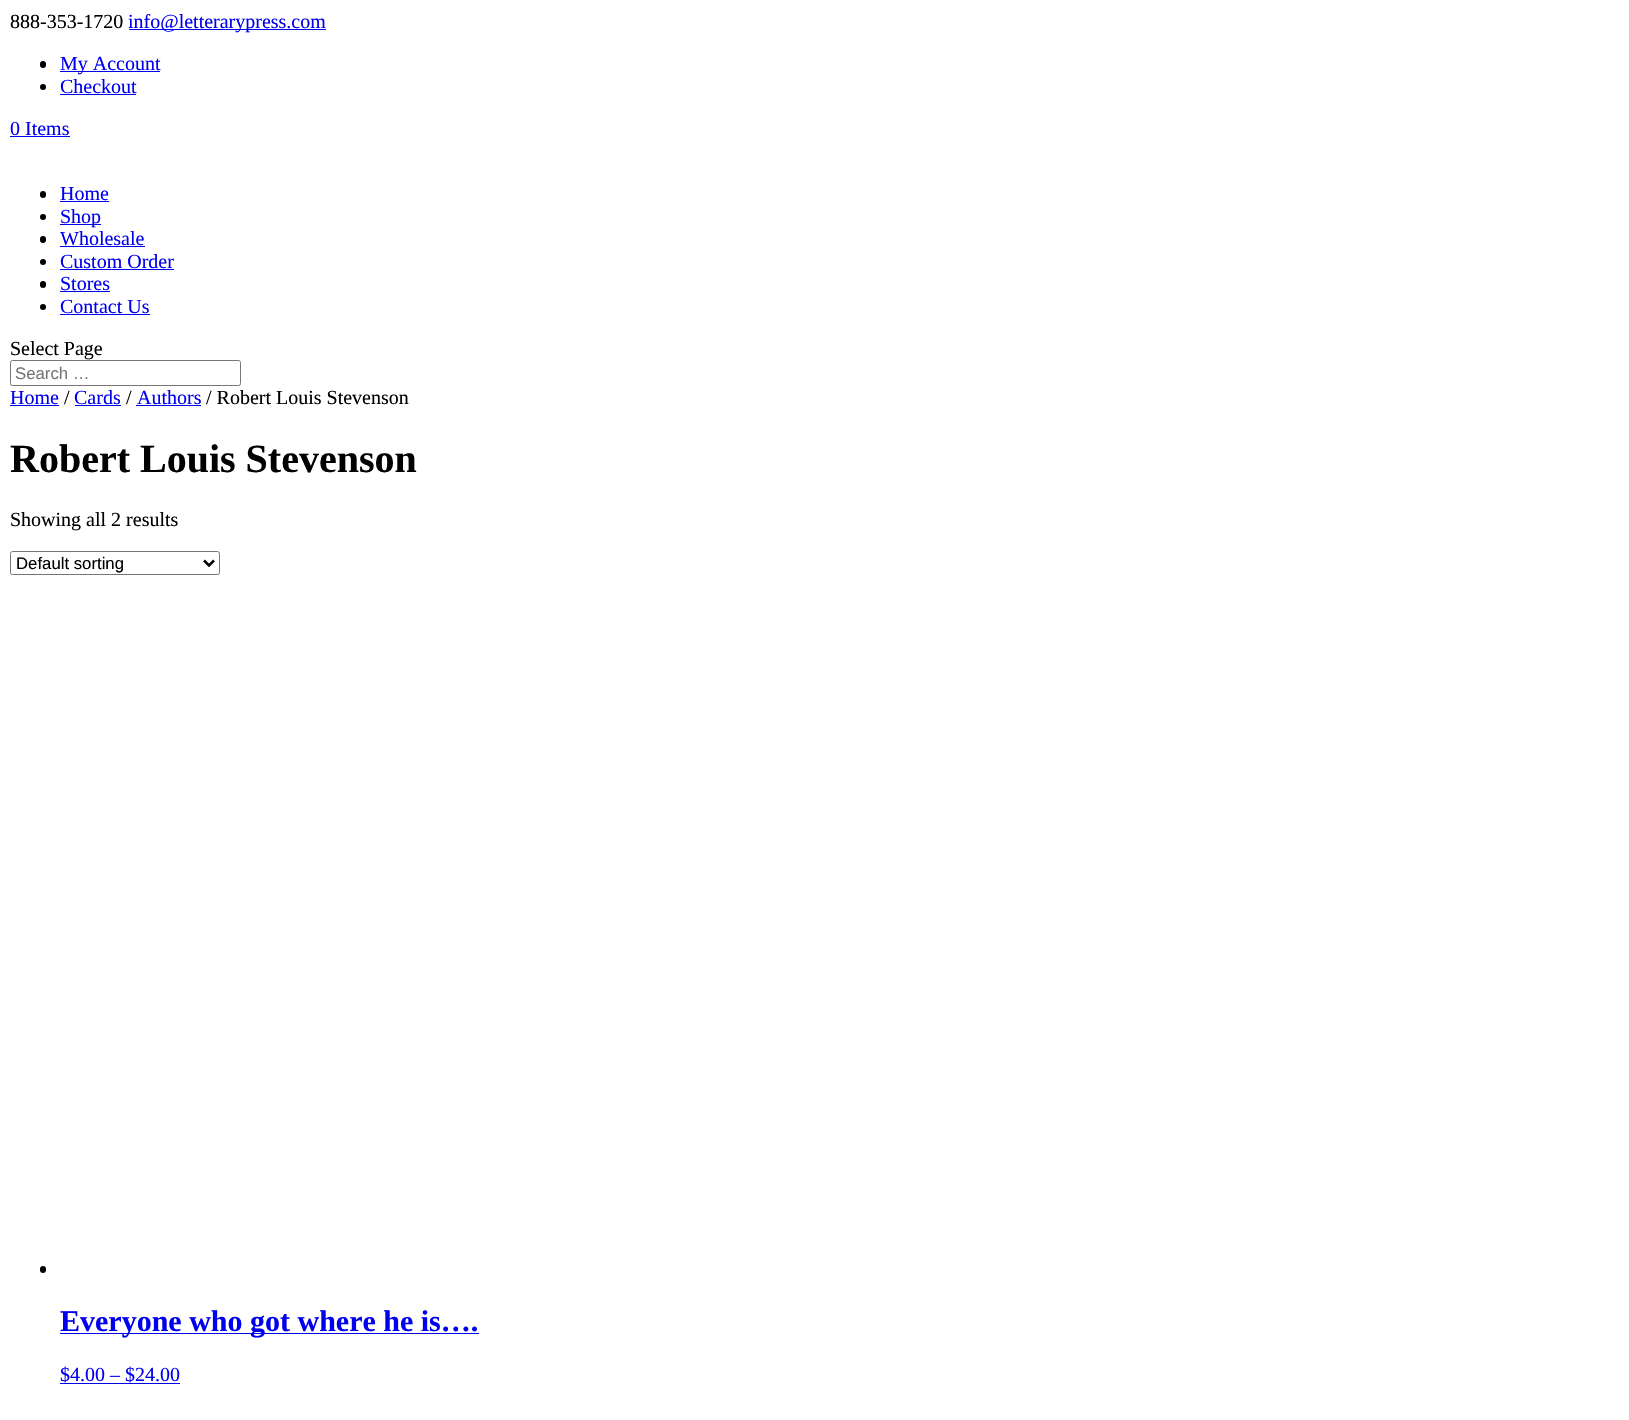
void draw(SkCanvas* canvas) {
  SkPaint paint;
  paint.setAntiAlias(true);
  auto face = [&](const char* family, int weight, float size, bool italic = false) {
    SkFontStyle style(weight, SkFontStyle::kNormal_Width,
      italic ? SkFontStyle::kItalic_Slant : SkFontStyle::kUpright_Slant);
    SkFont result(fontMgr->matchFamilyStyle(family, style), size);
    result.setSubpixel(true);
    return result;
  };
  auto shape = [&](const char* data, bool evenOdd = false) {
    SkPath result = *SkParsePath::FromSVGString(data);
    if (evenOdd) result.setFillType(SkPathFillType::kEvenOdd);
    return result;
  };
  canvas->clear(0xffffffff);
  paint.setColor(0xff0000ee);
  canvas->drawRect(SkRect::MakeXYWH(129, 29, 197, 1), paint);
  paint.setColor(0xff000000);
  canvas->drawRoundRect(SkRect::MakeXYWH(40, 61, 6, 7), 3, 3, paint);
  paint.setColor(0xff0000ee);
  canvas->drawRect(SkRect::MakeXYWH(60, 71, 100, 1), paint);
  paint.setColor(0xff000000);
  canvas->drawCircle(43, 87, 3, paint);
  paint.setColor(0xff0000ee);
  canvas->drawRect(SkRect::MakeXYWH(60, 94, 76, 1), paint);
  canvas->drawRect(SkRect::MakeXYWH(10, 136, 60, 1), paint);
  paint.setColor(0xff000000);
  canvas->drawRoundRect(SkRect::MakeXYWH(40, 191, 6, 7), 3, 3, paint);
  paint.setColor(0xff0000ee);
  canvas->drawRect(SkRect::MakeXYWH(60, 201, 49, 1), paint);
  paint.setColor(0xff000000);
  canvas->drawCircle(43, 217, 3, paint);
  paint.setColor(0xff0000ee);
  canvas->drawRect(SkRect::MakeXYWH(60, 224, 41, 1), paint);
  paint.setColor(0xff000000);
  canvas->drawRoundRect(SkRect::MakeXYWH(40, 236, 6, 7), 3, 3, paint);
  paint.setColor(0xff0000ee);
  canvas->drawRect(SkRect::MakeXYWH(60, 246, 85, 1), paint);
  paint.setColor(0xff000000);
  canvas->drawCircle(43, 262, 3, paint);
  paint.setColor(0xff0000ee);
  canvas->drawRect(SkRect::MakeXYWH(60, 269, 114, 1), paint);
  paint.setColor(0xff000000);
  canvas->drawRoundRect(SkRect::MakeXYWH(40, 281, 6, 7), 3, 3, paint);
  paint.setColor(0xff0000ee);
  canvas->drawRect(SkRect::MakeXYWH(60, 291, 50, 1), paint);
  paint.setColor(0xff000000);
  canvas->drawCircle(43, 307, 3, paint);
  paint.setColor(0xff0000ee);
  canvas->drawRect(SkRect::MakeXYWH(60, 314, 90, 1), paint);
  paint.setStroke(true);
  paint.setStrokeWidth(1);
  paint.setColor(0xff767676);
  canvas->drawRoundRect(SkRect::MakeXYWH(10.5f, 360.5f, 230, 25), 2, 2, paint);
  paint.setStroke(false);
  {
    const struct { float x, y, w, h; SkColor color; } items[] = {
      {10, 405, 49, 1, 0xff0000ee},
      {75, 405, 46, 1, 0xff0000ee},
      {136, 405, 65, 1, 0xff0000ee},
    };
    for (auto [x, y, w, h, color] : items) {
      paint.setColor(color);
      canvas->drawRect(SkRect::MakeXYWH(x, y, w, h), paint);
    }
  }
  paint.setStroke(true);
  paint.setColor(0xff767676);
  canvas->drawRoundRect(SkRect::MakeXYWH(10.5f, 551.5f, 209, 23), 2, 2, paint);
  paint.setStrokeWidth(2.5f);
  paint.setColor(0xff000000);
  canvas->drawPath(shape("M204 560.5L209 565.5L214 560.5"), paint);
  paint.setStroke(false);
  canvas->drawRoundRect(SkRect::MakeXYWH(40, 1266, 6, 7), 3, 3, paint);
  paint.setColor(0xff0000ee);
  canvas->drawRect(SkRect::MakeXYWH(60, 1333, 419, 1), paint);
  canvas->drawRect(SkRect::MakeXYWH(60, 1383, 120, 1), paint);
  auto f0 = face("Liberation Serif", 400, 20);
  paint.setColor(0xff000000);
  canvas->drawString("888-353-1720", 10, 28, f0, paint);
  paint.setColor(0xff0000ee);
  {
    const struct { const char* s; float x, y; } items[] = {
      {"info@letterarypress.com", 128, 28},
      {"My Account", 60, 70},
      {"Checkout", 60, 93},
      {"0 Items", 10, 135},
      {"Home", 60, 200},
      {"Shop", 60, 223},
      {"Wholesale", 60, 245},
      {"Custom Order", 60, 268},
      {"Stores", 60, 290},
      {"Contact Us", 60, 313},
    };
    for (auto [s, x, y] : items) {
      canvas->drawString(s, x, y, f0, paint);
    }
  }
  paint.setColor(0xff000000);
  canvas->drawString("Select Page", 10, 355, f0, paint);
  auto f1 = face("Liberation Sans", 400, 16.75f);
  paint.setColor(0xff757575);
  canvas->drawString("Search …", 15, 379, f1, paint);
  paint.setColor(0xff0000ee);
  canvas->drawString("Home", 10, 404, f0, paint);
  paint.setColor(0xff000000);
  canvas->drawString("/", 64, 404, f0, paint);
  paint.setColor(0xff0000ee);
  canvas->drawString("Cards", 74, 404, f0, paint);
  paint.setColor(0xff000000);
  canvas->drawString("/", 126, 404, f0, paint);
  paint.setColor(0xff0000ee);
  canvas->drawString("Authors", 137, 404, f0, paint);
  paint.setColor(0xff000000);
  canvas->drawString("/ Robert Louis Stevenson", 206, 404, f0, paint);
  auto f2 = face("Liberation Serif", 700, 40);
  canvas->drawString("Robert Louis Stevenson", 10, 472, f2, paint);
  canvas->drawString("Showing all 2 results", 10, 526, f0, paint);
  canvas->drawString("Default sorting", 16, 569, f1, paint);
  auto f3 = face("Liberation Serif", 700, 30);
  paint.setColor(0xff0000ee);
  canvas->drawString("Everyone who got where he is….", 60, 1331, f3, paint);
  canvas->drawString("$4.00 – $24.00", 60, 1381, f0, paint);
}
